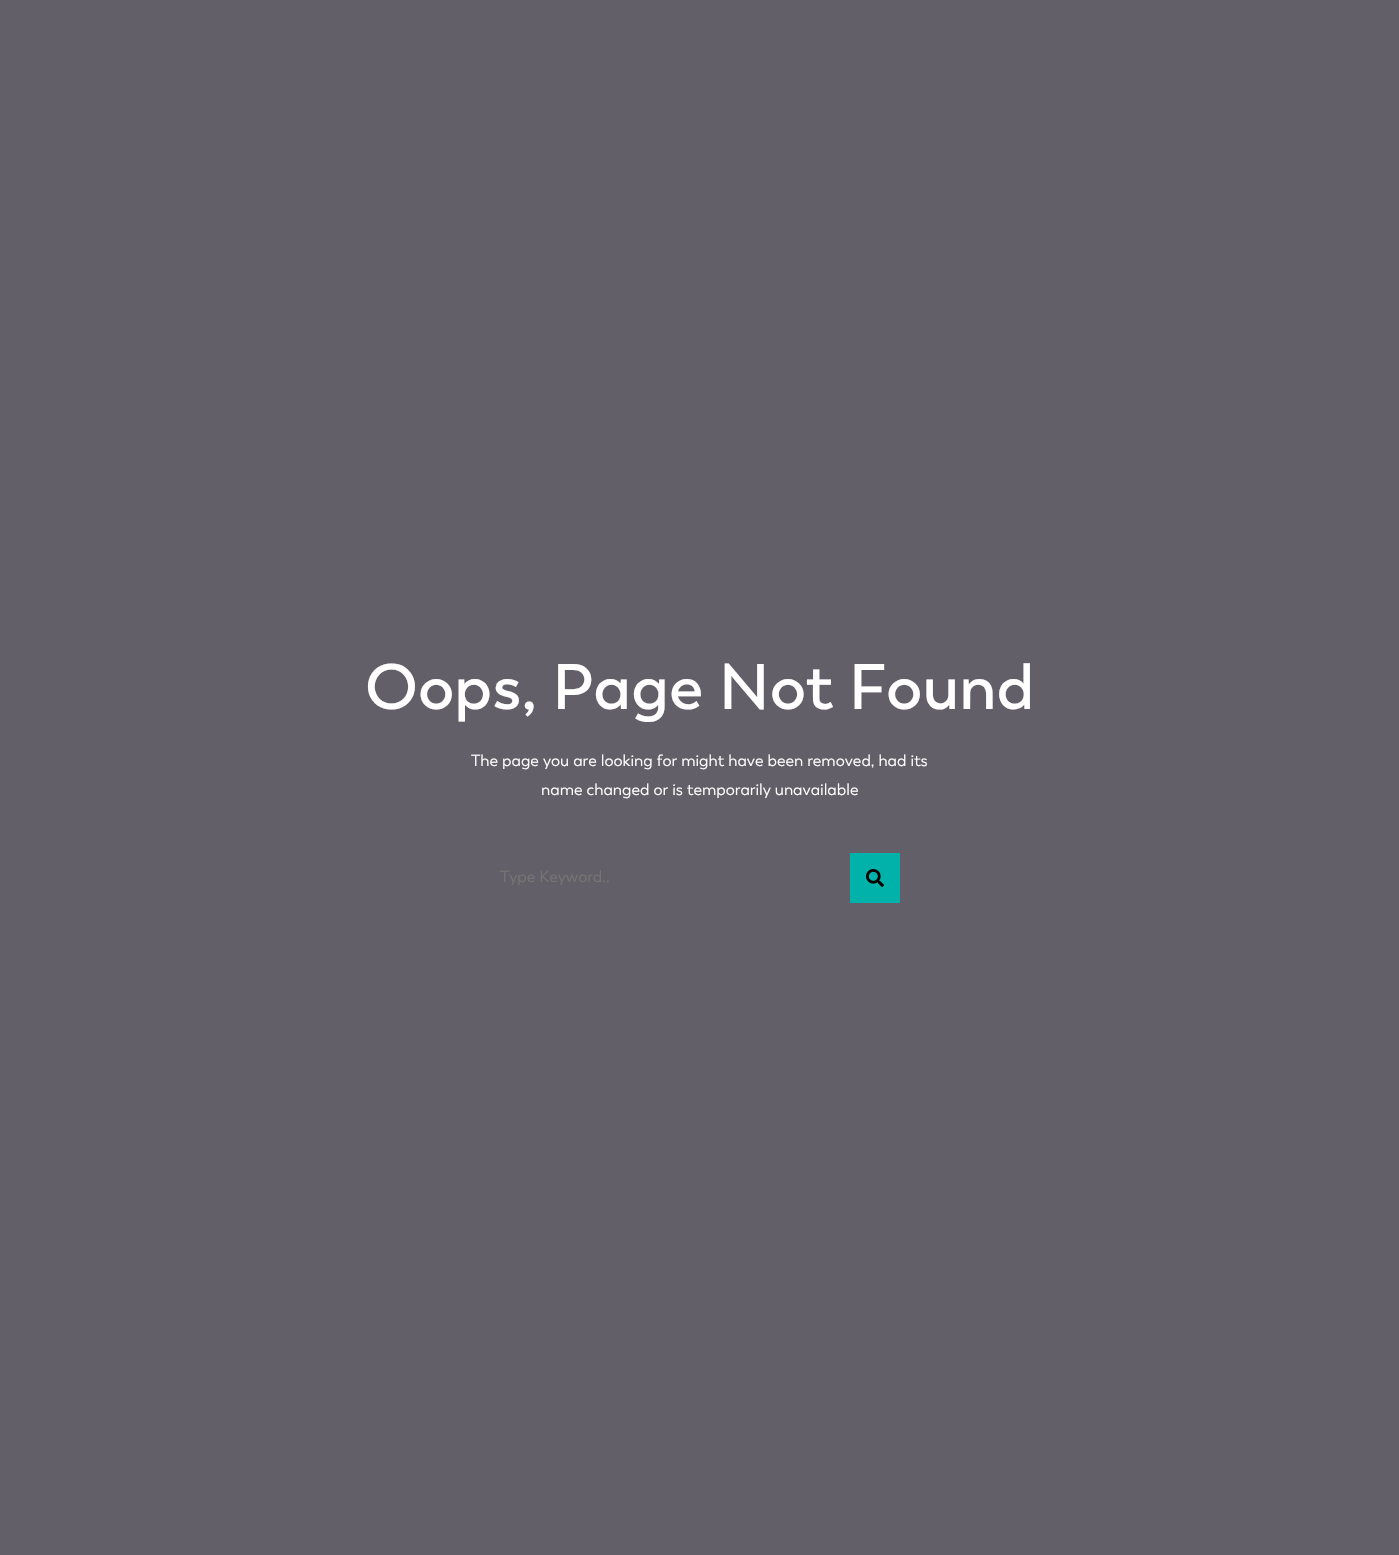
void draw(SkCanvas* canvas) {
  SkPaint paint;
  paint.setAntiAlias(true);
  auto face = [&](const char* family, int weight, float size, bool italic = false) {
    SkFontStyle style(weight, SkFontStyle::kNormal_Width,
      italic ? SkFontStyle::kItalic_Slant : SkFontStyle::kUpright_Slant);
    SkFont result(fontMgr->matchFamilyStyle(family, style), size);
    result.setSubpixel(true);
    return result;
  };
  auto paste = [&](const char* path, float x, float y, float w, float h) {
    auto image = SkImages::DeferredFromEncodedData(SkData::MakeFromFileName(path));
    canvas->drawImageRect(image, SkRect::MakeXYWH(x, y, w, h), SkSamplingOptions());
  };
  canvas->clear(0xff635f68);
  paint.setColor(0xff00b2a9);
  canvas->drawRect(SkRect::MakeXYWH(850, 853, 50, 50), paint);
  paste("img/1.png", 866, 869, 18, 18);
  auto f0 = face("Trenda", 600, 64);
  paint.setColor(0xffffffff);
  canvas->drawString("Oops, Page Not Found", 365, 709, f0, paint);
  auto f1 = face("Trenda", 400, 16);
  canvas->drawString("The page you are looking for might have been removed, had its", 471, 766, f1, paint);
  canvas->drawString("name changed or is temporarily unavailable", 541, 795, f1, paint);
  paint.setColor(0xff757575);
  canvas->drawString("Type Keyword..", 500, 882, f1, paint);
}
